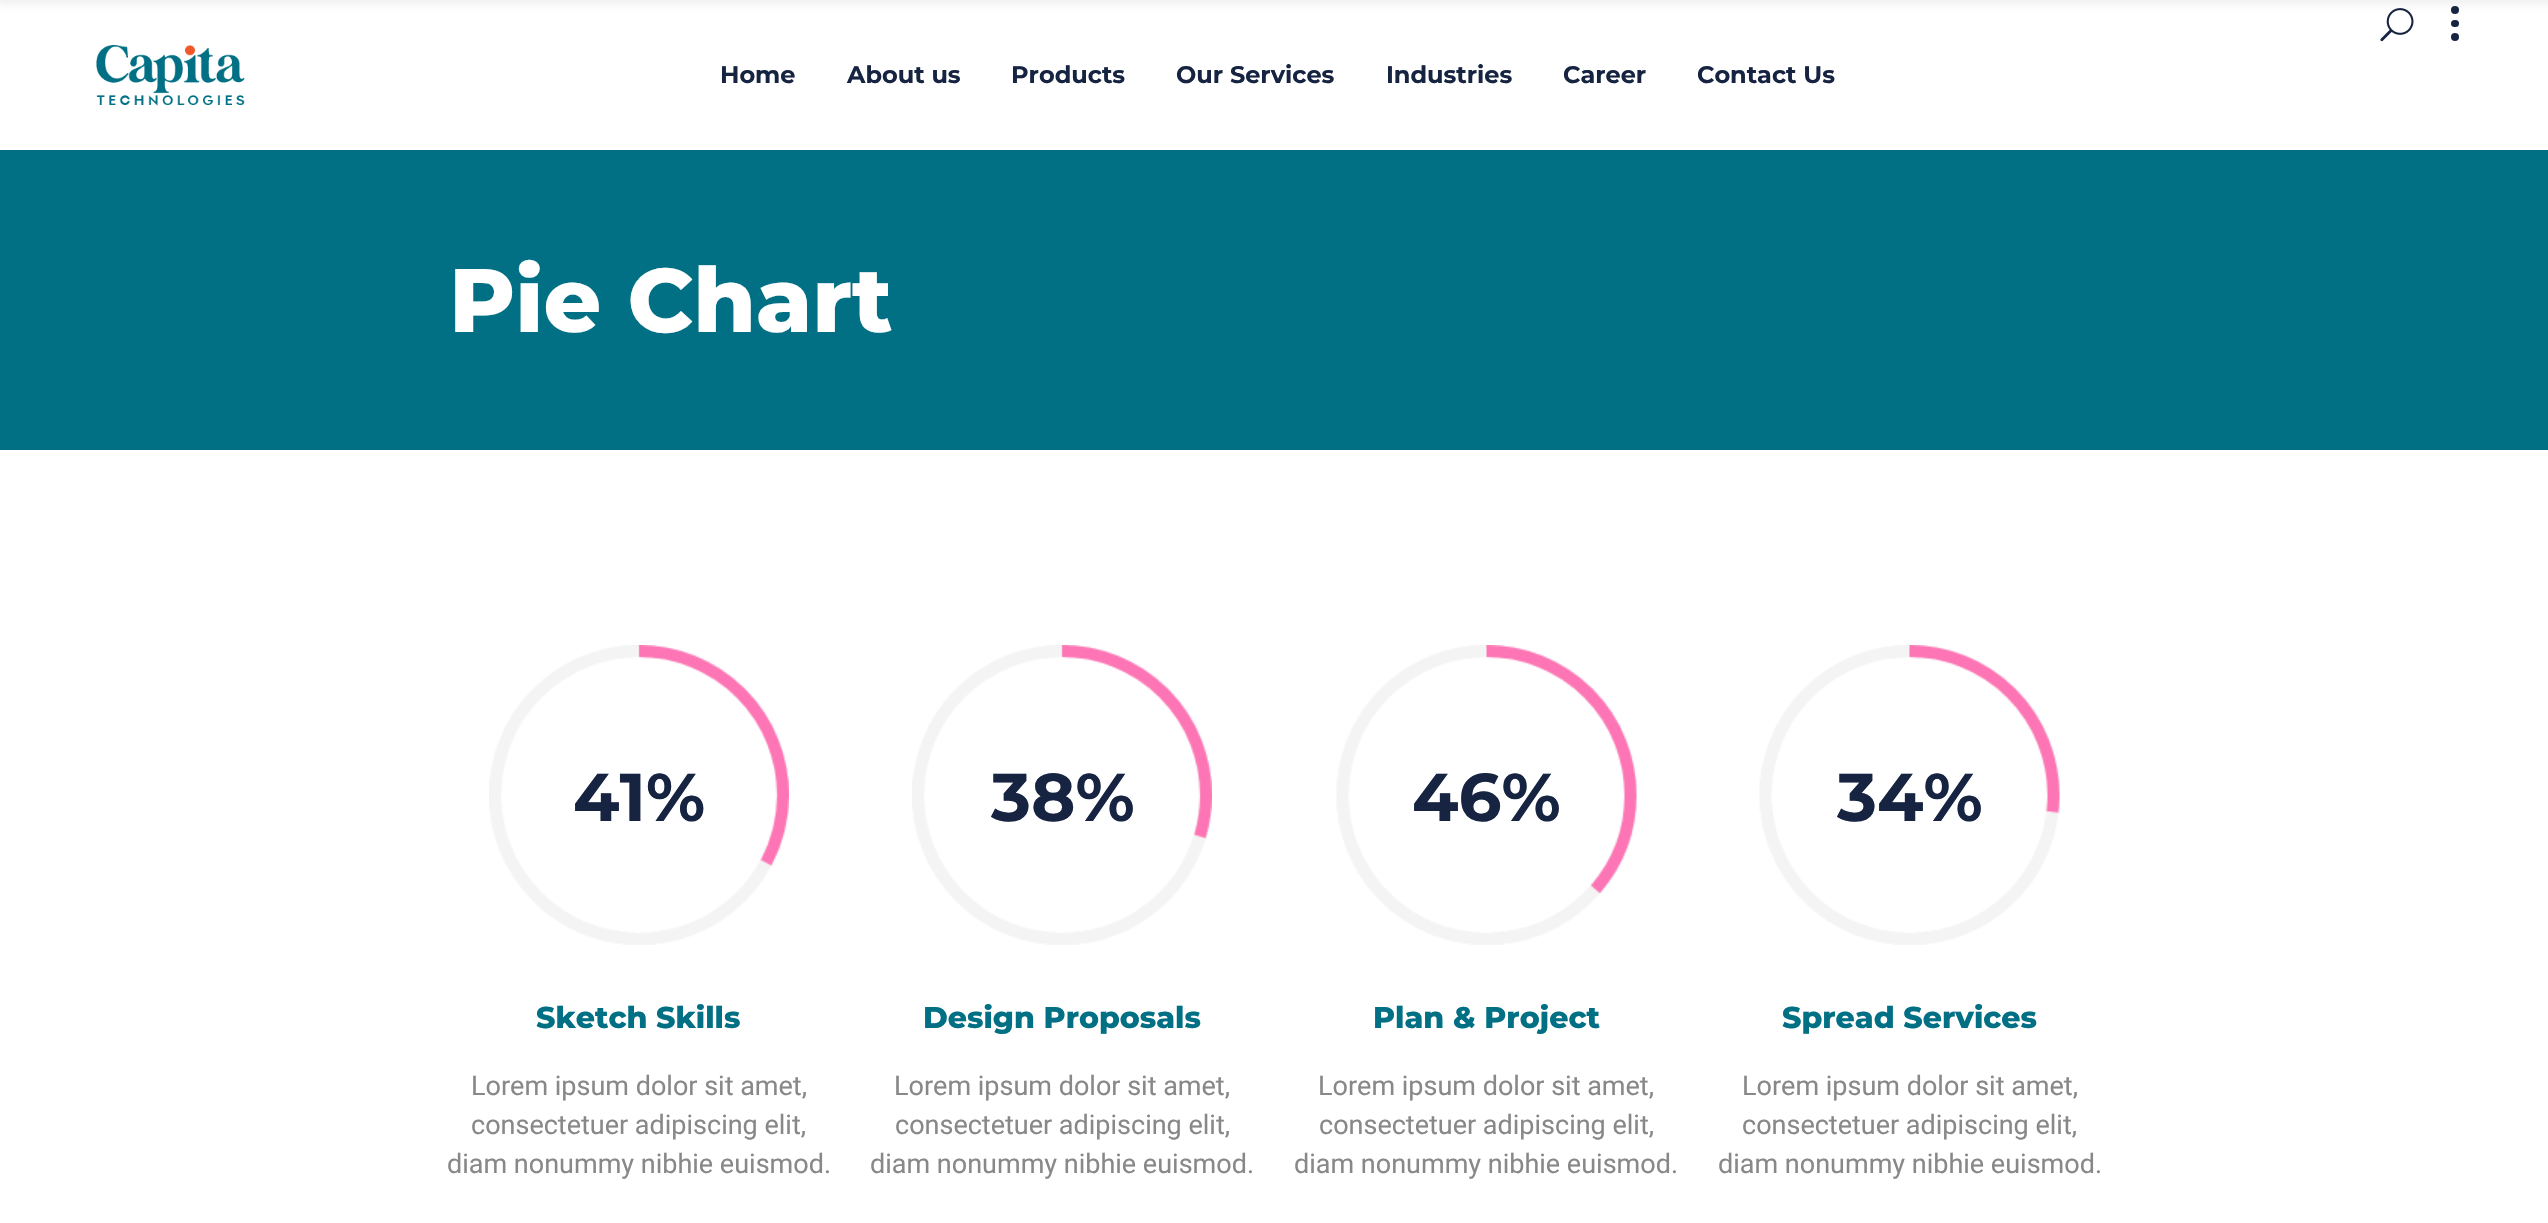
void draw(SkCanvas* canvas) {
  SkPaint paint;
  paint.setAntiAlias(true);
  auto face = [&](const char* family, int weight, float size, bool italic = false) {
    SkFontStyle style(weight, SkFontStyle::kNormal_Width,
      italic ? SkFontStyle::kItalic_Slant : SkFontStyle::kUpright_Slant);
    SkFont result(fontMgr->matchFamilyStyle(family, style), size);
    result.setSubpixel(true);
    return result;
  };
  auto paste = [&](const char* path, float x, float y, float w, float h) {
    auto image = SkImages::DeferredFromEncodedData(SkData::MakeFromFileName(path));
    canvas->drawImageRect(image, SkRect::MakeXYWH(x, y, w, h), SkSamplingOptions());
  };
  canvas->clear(0xffffffff);
  paste("img/1.png", 2380, 8, 34, 34);
  paint.setColor(0xff162441);
  canvas->drawCircle(2455, 10, 4, paint);
  paint.setColor(0x0d000000);
  paint.setMaskFilter(SkMaskFilter::MakeBlur(kNormal_SkBlurStyle, 3));
  canvas->drawRect(SkRect::MakeXYWH(-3, -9, 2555, 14), paint);
  paint.setMaskFilter(nullptr);
  paint.setColor(0xff162441);
  canvas->drawRoundRect(SkRect::MakeXYWH(2451, 20, 8, 7), 3.5f, 3.5f, paint);
  canvas->drawCircle(2455, 37, 4, paint);
  paste("img/2.png", 96, 45, 149, 61);
  paint.setColor(0xff017084);
  canvas->drawRect(SkRect::MakeXYWH(0, 150, 2548, 300), paint);
  auto f0 = face("Montserrat", 700, 24);
  paint.setColor(0xff162441);
  {
    const struct { const char* s; float x, y; } items[] = {
      {"Home", 720, 83},
      {"About us", 847, 83},
      {"Products", 1011, 83},
      {"Our Services", 1176, 83},
      {"Industries", 1386, 83},
      {"Career", 1563, 83},
      {"Contact Us", 1697, 83},
    };
    for (auto [s, x, y] : items) {
      canvas->drawString(s, x, y, f0, paint);
    }
  }
  auto f1 = face("Montserrat", 800, 90);
  paint.setColor(0xffffffff);
  canvas->drawString("Pie Chart", 449, 332, f1, paint);
  auto f2 = face("Montserrat", 700, 67.5f);
  paint.setColor(0xff162441);
  canvas->drawString("41%", 573, 821, f2, paint);
  paste("img/3.png", 489, 645, 300, 300);
  auto f3 = face("Montserrat", 800, 30);
  paint.setColor(0xff017084);
  canvas->drawString("Sketch Skills", 536, 1028, f3, paint);
  auto f4 = face("Roboto", 400, 27);
  paint.setColor(0xff888888);
  {
    const struct { const char* s; float x, y; } items[] = {
      {"Lorem ipsum dolor sit amet,", 471, 1095},
      {"consectetuer adipiscing elit,", 471, 1134},
      {"diam nonummy nibhie euismod.", 447, 1173},
    };
    for (auto [s, x, y] : items) {
      canvas->drawString(s, x, y, f4, paint);
    }
  }
  paint.setColor(0xff162441);
  canvas->drawString("38%", 991, 821, f2, paint);
  paste("img/4.png", 912, 645, 300, 300);
  paint.setColor(0xff017084);
  canvas->drawString("Design Proposals", 923, 1028, f3, paint);
  paint.setColor(0xff888888);
  {
    const struct { const char* s; float x, y; } items[] = {
      {"Lorem ipsum dolor sit amet,", 894, 1095},
      {"consectetuer adipiscing elit,", 895, 1134},
      {"diam nonummy nibhie euismod.", 870, 1173},
    };
    for (auto [s, x, y] : items) {
      canvas->drawString(s, x, y, f4, paint);
    }
  }
  paint.setColor(0xff162441);
  canvas->drawString("46%", 1412, 821, f2, paint);
  paste("img/5.png", 1336, 645, 301, 300);
  paint.setColor(0xff017084);
  canvas->drawString("Plan & Project", 1373, 1028, f3, paint);
  paint.setColor(0xff888888);
  {
    const struct { const char* s; float x, y; } items[] = {
      {"Lorem ipsum dolor sit amet,", 1318, 1095},
      {"consectetuer adipiscing elit,", 1319, 1134},
      {"diam nonummy nibhie euismod.", 1294, 1173},
    };
    for (auto [s, x, y] : items) {
      canvas->drawString(s, x, y, f4, paint);
    }
  }
  paint.setColor(0xff162441);
  canvas->drawString("34%", 1837, 821, f2, paint);
  paste("img/6.png", 1759, 645, 301, 300);
  paint.setColor(0xff017084);
  canvas->drawString("Spread Services", 1782, 1028, f3, paint);
  paint.setColor(0xff888888);
  {
    const struct { const char* s; float x, y; } items[] = {
      {"Lorem ipsum dolor sit amet,", 1742, 1095},
      {"consectetuer adipiscing elit,", 1742, 1134},
      {"diam nonummy nibhie euismod.", 1718, 1173},
    };
    for (auto [s, x, y] : items) {
      canvas->drawString(s, x, y, f4, paint);
    }
  }
}
